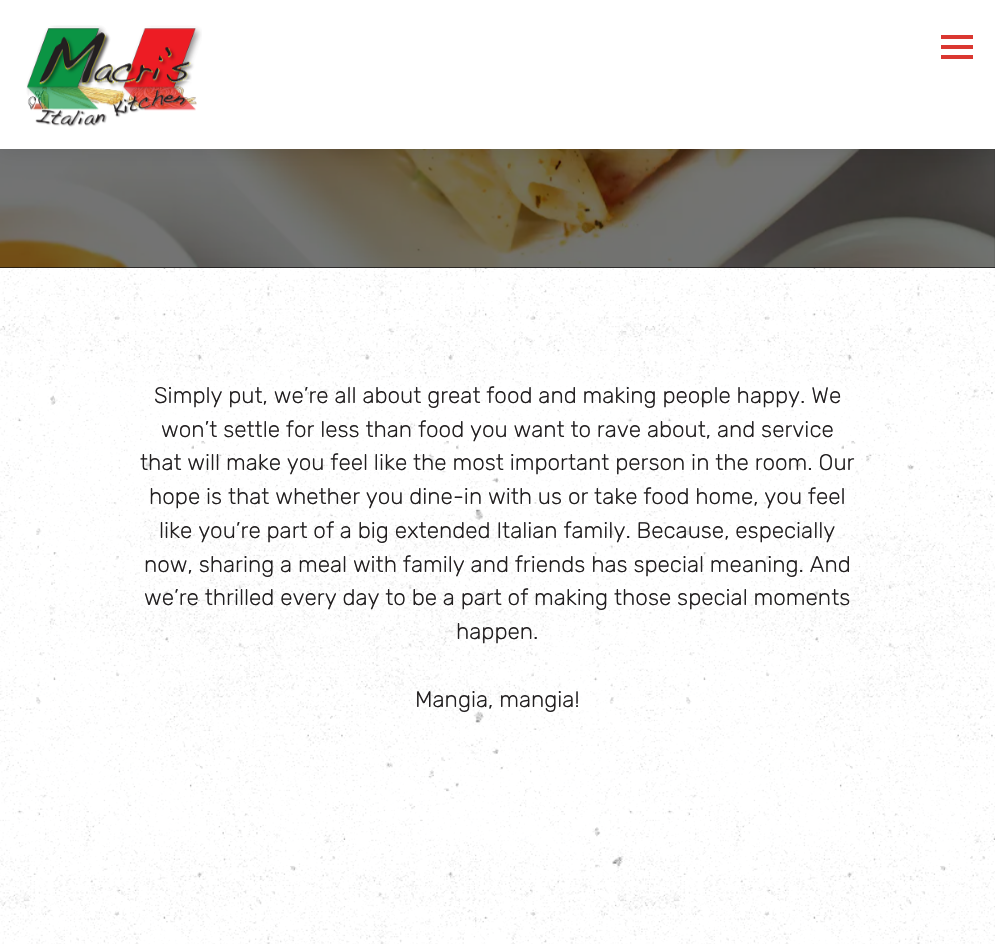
void draw(SkCanvas* canvas) {
  SkPaint paint;
  paint.setAntiAlias(true);
  auto face = [&](const char* family, int weight, float size, bool italic = false) {
    SkFontStyle style(weight, SkFontStyle::kNormal_Width,
      italic ? SkFontStyle::kItalic_Slant : SkFontStyle::kUpright_Slant);
    SkFont result(fontMgr->matchFamilyStyle(family, style), size);
    result.setSubpixel(true);
    return result;
  };
  auto paste = [&](const char* path, float x, float y, float w, float h) {
    auto image = SkImages::DeferredFromEncodedData(SkData::MakeFromFileName(path));
    canvas->drawImageRect(image, SkRect::MakeXYWH(x, y, w, h), SkSamplingOptions());
  };
  canvas->clear(0xffffffff);
  paste("img/1.png", 0, 268, 995, 676);
  paint.setColor(0xff221f20);
  canvas->drawRect(SkRect::MakeXYWH(0, 149, 995, 119), paint);
  paste("img/3.png", 0, 149, 995, 119);
  paint.setColor(0x8c000000);
  canvas->drawRect(SkRect::MakeXYWH(0, 149, 995, 119), paint);
  paint.setColor(0x1a000000);
  paint.setMaskFilter(SkMaskFilter::MakeBlur(kNormal_SkBlurStyle, 9.5f));
  canvas->drawRect(SkRect::MakeXYWH(0, 0, 995, 149), paint);
  paint.setMaskFilter(nullptr);
  paint.setColor(0xffffffff);
  canvas->drawRect(SkRect::MakeXYWH(0, 0, 995, 149), paint);
  paste("img/2.png", 26, 25, 176, 102);
  {
    const struct { float x, y, w, h; SkColor color; } items[] = {
      {941, 35, 32, 4, 0xffda3731},
      {941, 45, 32, 4, 0xffda3731},
      {941, 55, 32, 4, 0xffda3731},
    };
    for (auto [x, y, w, h, color] : items) {
      paint.setColor(color);
      canvas->drawRect(SkRect::MakeXYWH(x, y, w, h), paint);
    }
  }
  auto f0 = face("Rubik", 300, 22.5f);
  paint.setColor(0xff221f20);
  {
    const struct { const char* s; float x, y; } items[] = {
      {"Simply put, we’re all about great food and making people happy. We", 154, 403},
      {"won’t settle for less than food you want to rave about, and service", 161, 437},
      {"that will make you feel like the most important person in the room. Our", 140, 470},
      {"hope is that whether you dine-in with us or take food home, you feel", 149, 504},
      {"like you’re part of a big extended Italian family. Because, especially", 159, 538},
      {"now, sharing a meal with family and friends has special meaning. And", 144, 572},
      {"we’re thrilled every day to be a part of making those special moments", 144, 605},
      {"happen.", 456, 639},
      {"Mangia, mangia!", 415, 707},
    };
    for (auto [s, x, y] : items) {
      canvas->drawString(s, x, y, f0, paint);
    }
  }
}
